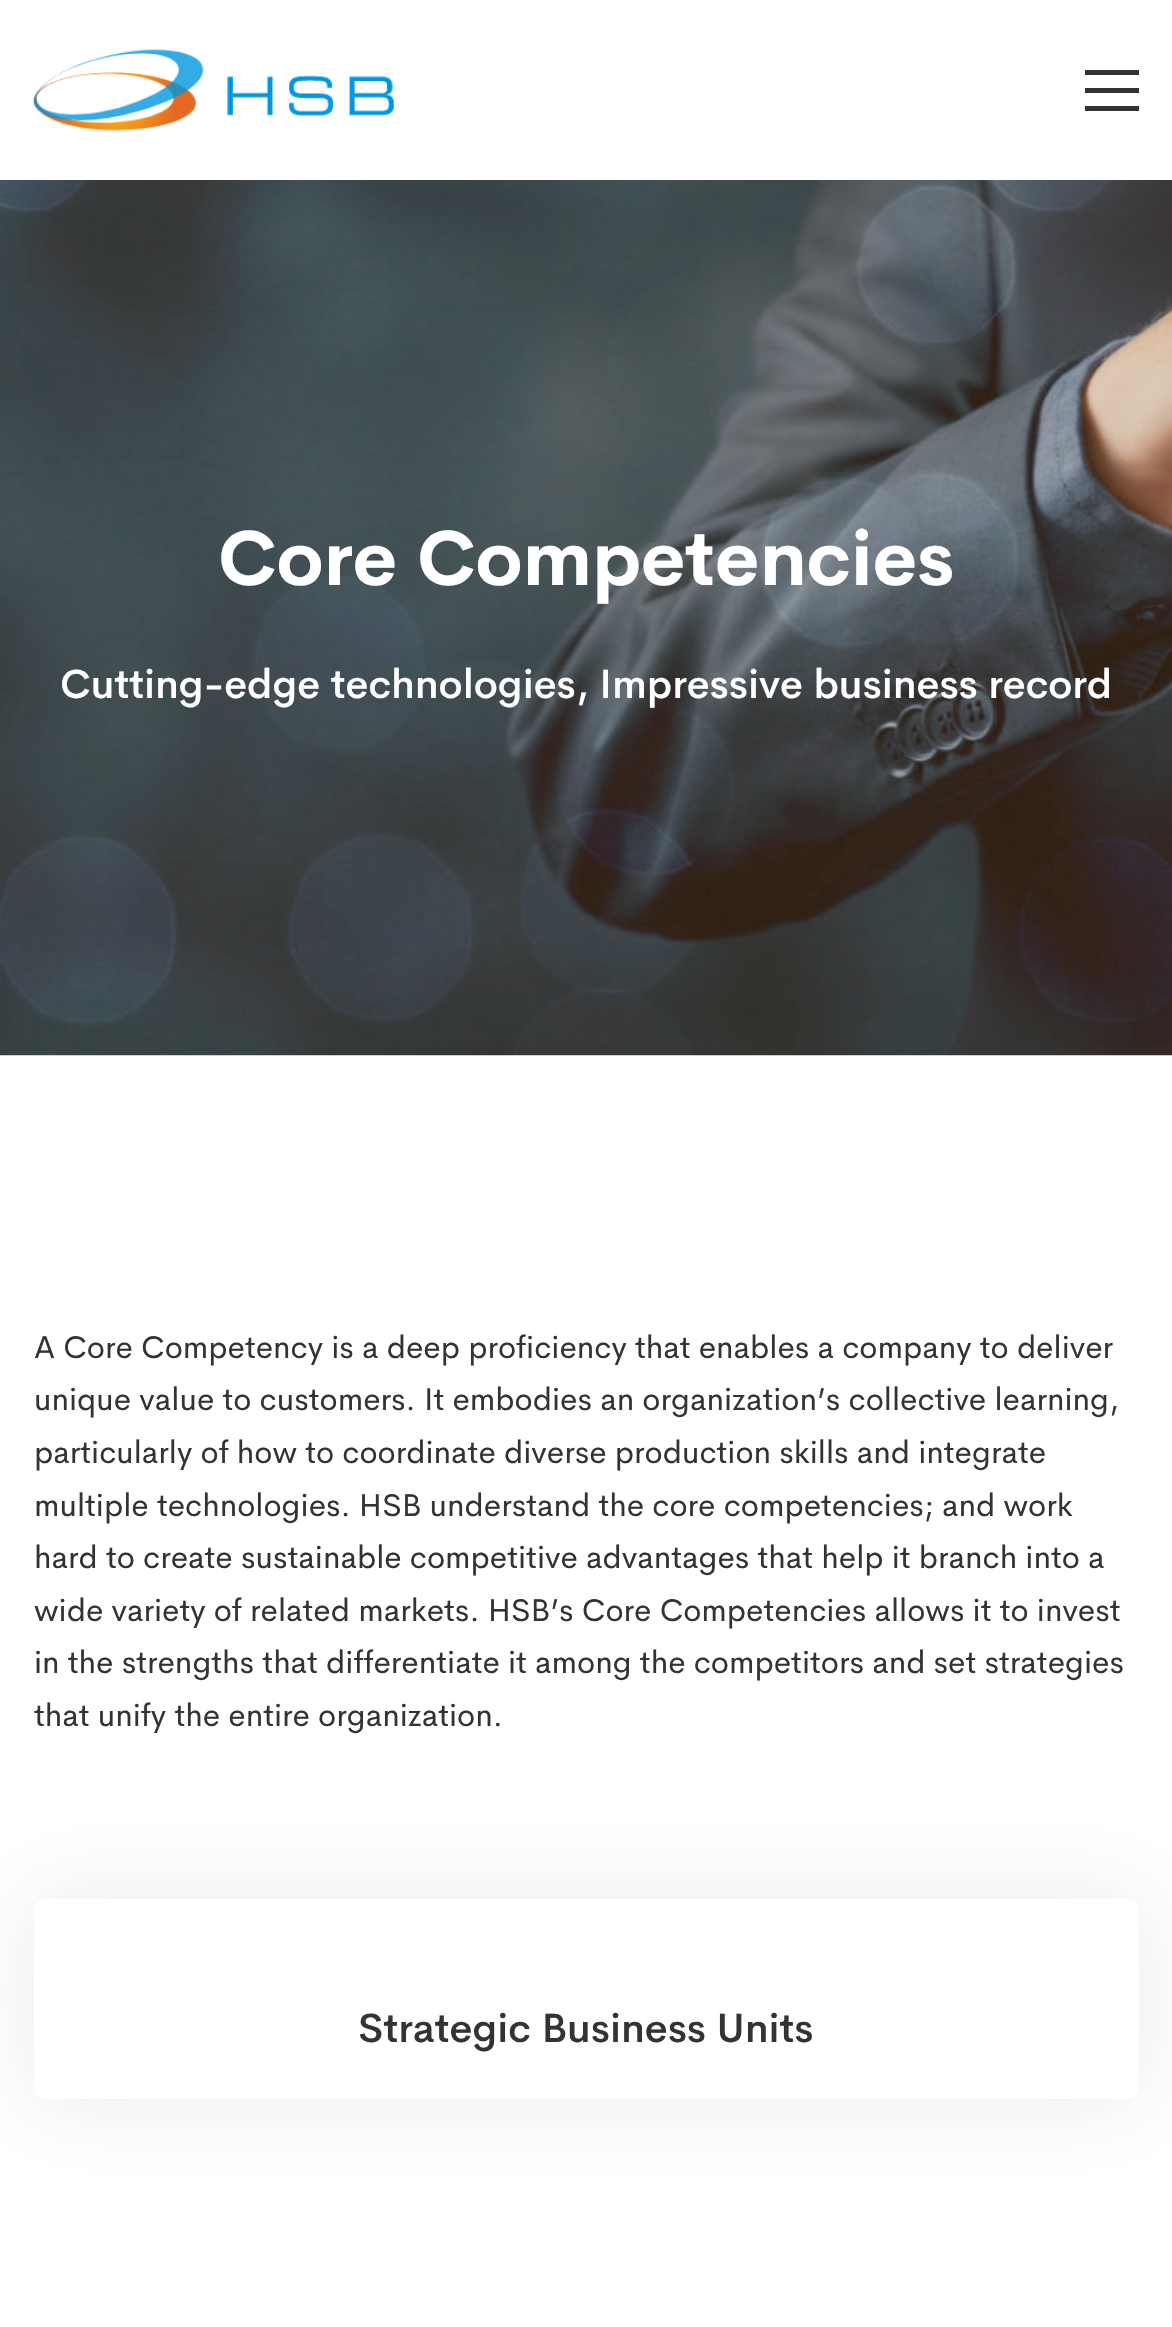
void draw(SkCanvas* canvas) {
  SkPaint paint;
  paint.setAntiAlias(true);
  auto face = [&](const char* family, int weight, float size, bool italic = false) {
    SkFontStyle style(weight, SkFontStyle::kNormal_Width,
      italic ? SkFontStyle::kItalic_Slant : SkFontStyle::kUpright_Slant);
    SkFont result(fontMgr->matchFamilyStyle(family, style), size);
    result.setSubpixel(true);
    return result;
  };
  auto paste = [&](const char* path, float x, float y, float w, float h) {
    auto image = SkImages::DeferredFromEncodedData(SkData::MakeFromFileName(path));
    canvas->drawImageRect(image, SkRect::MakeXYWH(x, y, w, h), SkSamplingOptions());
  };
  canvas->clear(0xffffffff);
  paste("img/1.png", 33, 49, 361, 82);
  {
    const struct { float x, y, w, h; SkColor color; } items[] = {
      {1085, 88, 54, 5, 0xff333333},
      {1085, 70, 54, 5, 0xff333333},
      {1085, 106, 54, 5, 0xff333333},
    };
    for (auto [x, y, w, h, color] : items) {
      paint.setColor(color);
      canvas->drawRect(SkRect::MakeXYWH(x, y, w, h), paint);
    }
  }
  paste("img/2.png", 0, 180, 1172, 876);
  paint.setColor(0x1a333333);
  paint.setMaskFilter(SkMaskFilter::MakeBlur(kNormal_SkBlurStyle, 45));
  canvas->drawRoundRect(SkRect::MakeXYWH(34, 1899, 1105, 200), 11, 11, paint);
  paint.setMaskFilter(nullptr);
  paint.setColor(0xffffffff);
  canvas->drawRoundRect(SkRect::MakeXYWH(34, 1899, 1105, 200), 11, 11, paint);
  auto f0 = face("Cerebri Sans", 700, 76.5f);
  canvas->drawString("Core Competencies", 218, 585, f0, paint);
  auto f1 = face("Cerebri Sans", 500, 40.5f);
  canvas->drawString("Cutting-edge technologies, Impressive business record", 60, 698, f1, paint);
  auto f2 = face("Cerebri Sans", 400, 31.5f);
  paint.setColor(0xff333333);
  {
    const struct { const char* s; float x, y; } items[] = {
      {"A Core Competency is a deep proficiency that enables a company to deliver", 34, 1358},
      {"unique value to customers. It embodies an organization’s collective learning,", 34, 1410},
      {"particularly of how to coordinate diverse production skills and integrate", 34, 1463},
      {"multiple technologies. HSB understand the core competencies; and work", 34, 1516},
      {"hard to create sustainable competitive advantages that help it branch into a", 34, 1568},
      {"wide variety of related markets. HSB’s Core Competencies allows it to invest", 34, 1621},
      {"in the strengths that differentiate it among the competitors and set strategies", 34, 1673},
      {"that unify the entire organization.", 34, 1726},
    };
    for (auto [s, x, y] : items) {
      canvas->drawString(s, x, y, f2, paint);
    }
  }
  canvas->drawString("Strategic Business Units", 358, 2042, f1, paint);
}
